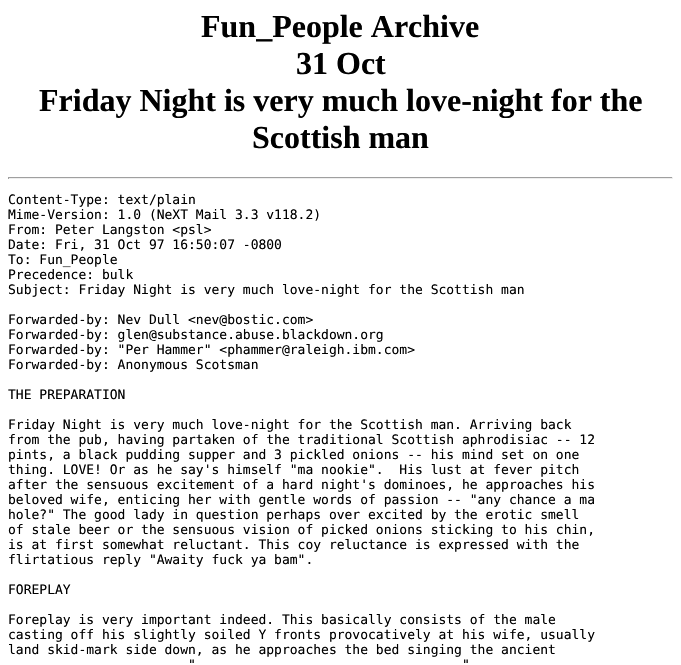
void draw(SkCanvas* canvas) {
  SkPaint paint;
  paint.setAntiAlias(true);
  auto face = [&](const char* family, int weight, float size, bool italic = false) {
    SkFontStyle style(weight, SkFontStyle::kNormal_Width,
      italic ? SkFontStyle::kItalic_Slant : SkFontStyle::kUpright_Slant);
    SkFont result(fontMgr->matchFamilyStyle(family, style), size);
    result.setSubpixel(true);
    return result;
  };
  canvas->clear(0xffffffff);
  {
    const struct { float x, y, w, h; SkColor color; } items[] = {
      {8, 177, 665, 1, 0xff9f9f9f},
      {672, 177, 1, 2, 0xffeeeeee},
      {8, 178, 665, 1, 0xffeeeeee},
      {8, 177, 1, 2, 0xff9f9f9f},
    };
    for (auto [x, y, w, h, color] : items) {
      paint.setColor(color);
      canvas->drawRect(SkRect::MakeXYWH(x, y, w, h), paint);
    }
  }
  auto f0 = face("Liberation Serif", 700, 32);
  paint.setColor(0xff000000);
  {
    const struct { const char* s; float x, y; } items[] = {
      {"Fun_People Archive", 201, 37},
      {"31 Oct", 296, 74},
      {"Friday Night is very much love-night for the", 39, 111},
      {"Scottish man", 252, 148},
    };
    for (auto [s, x, y] : items) {
      canvas->drawString(s, x, y, f0, paint);
    }
  }
  auto f1 = face("DejaVu Sans Mono", 400, 13);
  {
    const struct { const char* s; float x, y; } items[] = {
      {"Content-Type: text/plain", 8, 204},
      {"Mime-Version: 1.0 (NeXT Mail 3.3 v118.2)", 8, 219},
      {"From: Peter Langston <psl>", 8, 234},
      {"Date: Fri, 31 Oct 97 16:50:07 -0800", 8, 249},
      {"To: Fun_People", 8, 264},
      {"Precedence: bulk", 8, 279},
      {"Subject: Friday Night is very much love-night for the Scottish man", 8, 294},
      {"Forwarded-by: Nev Dull <nev@bostic.com>", 8, 324},
      {"Forwarded-by: glen@substance.abuse.blackdown.org", 8, 339},
      {"Forwarded-by: \"Per Hammer\" <phammer@raleigh.ibm.com>", 8, 354},
      {"Forwarded-by: Anonymous Scotsman", 8, 369},
      {"THE PREPARATION", 8, 399},
      {"Friday Night is very much love-night for the Scottish man. Arriving back", 8, 429},
      {"from the pub, having partaken of the traditional Scottish aphrodisiac -- 12", 8, 444},
      {"pints, a black pudding supper and 3 pickled onions -- his mind set on one", 8, 459},
      {"thing. LOVE! Or as he say's himself \"ma nookie\".  His lust at fever pitch", 8, 474},
      {"after the sensuous excitement of a hard night's dominoes, he approaches his", 8, 489},
      {"beloved wife, enticing her with gentle words of passion -- \"any chance a ma", 8, 504},
      {"hole?\" The good lady in question perhaps over excited by the erotic smell", 8, 519},
      {"of stale beer or the sensuous vision of picked onions sticking to his chin,", 8, 534},
      {"is at first somewhat reluctant. This coy reluctance is expressed with the", 8, 549},
      {"flirtatious reply \"Awaity fuck ya bam\".", 8, 564},
      {"FOREPLAY", 8, 594},
      {"Foreplay is very important indeed. This basically consists of the male", 8, 624},
      {"casting off his slightly soiled Y fronts provocatively at his wife, usually", 8, 639},
      {"land skid-mark side down, as he approaches the bed singing the ancient", 8, 654},
      {"\"", 188, 669},
      {"\"", 462, 669},
    };
    for (auto [s, x, y] : items) {
      canvas->drawString(s, x, y, f1, paint);
    }
  }
}
